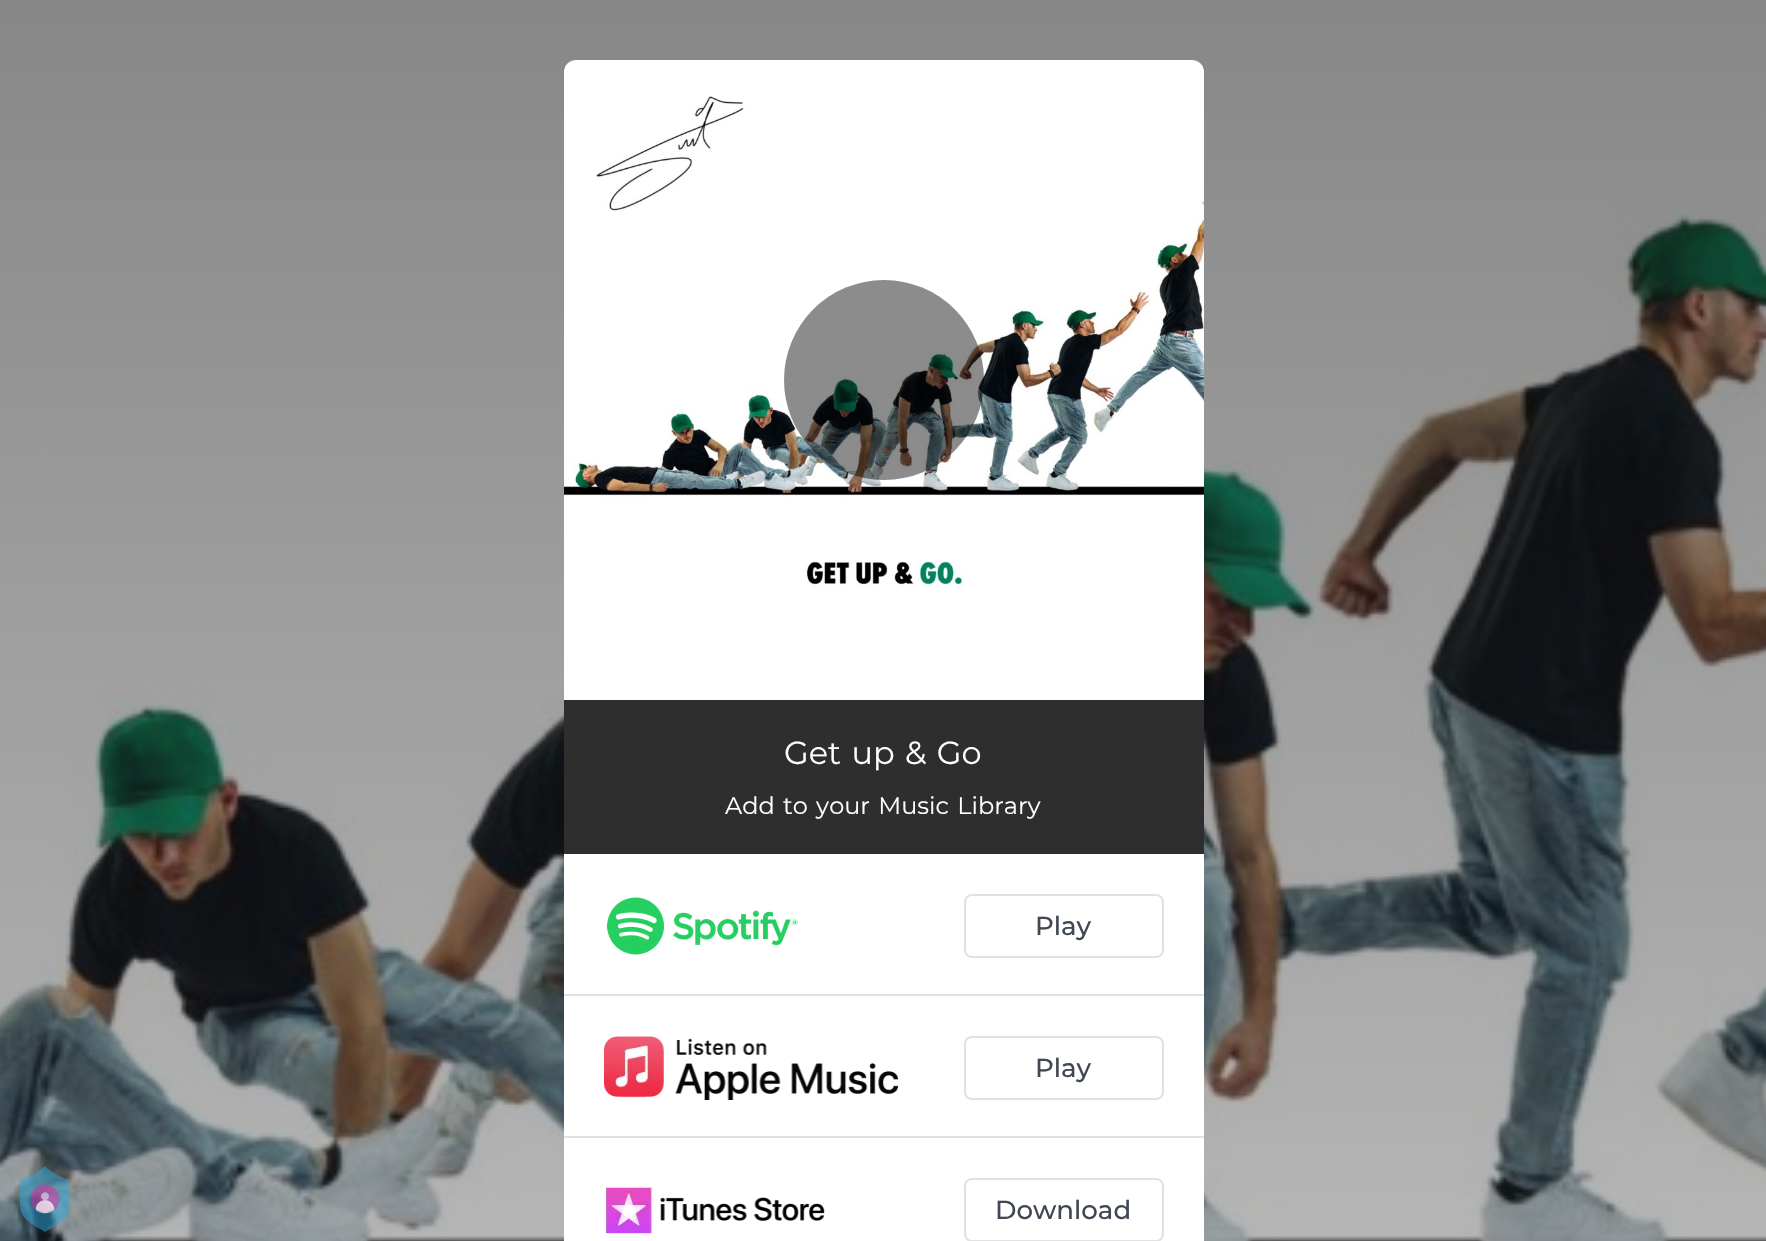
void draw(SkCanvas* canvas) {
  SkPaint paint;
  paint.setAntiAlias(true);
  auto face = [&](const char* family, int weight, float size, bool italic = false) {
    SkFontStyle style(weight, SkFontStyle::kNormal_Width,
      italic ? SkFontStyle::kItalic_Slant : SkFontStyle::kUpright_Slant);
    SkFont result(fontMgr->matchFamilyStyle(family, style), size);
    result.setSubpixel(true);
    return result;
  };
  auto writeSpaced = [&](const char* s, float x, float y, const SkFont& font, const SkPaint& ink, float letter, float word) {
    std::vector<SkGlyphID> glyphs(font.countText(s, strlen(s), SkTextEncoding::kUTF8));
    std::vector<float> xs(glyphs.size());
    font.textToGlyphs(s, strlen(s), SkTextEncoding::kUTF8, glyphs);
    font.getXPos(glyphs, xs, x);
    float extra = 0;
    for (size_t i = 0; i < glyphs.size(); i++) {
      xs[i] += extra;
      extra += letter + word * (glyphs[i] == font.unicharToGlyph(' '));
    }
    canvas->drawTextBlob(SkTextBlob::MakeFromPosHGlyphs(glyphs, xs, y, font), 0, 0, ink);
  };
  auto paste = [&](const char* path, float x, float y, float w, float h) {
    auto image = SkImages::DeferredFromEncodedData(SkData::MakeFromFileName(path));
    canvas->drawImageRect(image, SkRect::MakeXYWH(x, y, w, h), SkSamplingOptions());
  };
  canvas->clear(0xffffffff);
  paste("img/2.png", 0, 0, 1766, 1241);
  paste("img/1.png", 20, 1166, 50, 66);
  paste("img/3.png", 564, 60, 640, 640);
  paint.setColor(0x73000000);
  canvas->drawCircle(884, 380, 100, paint);
  {
    const struct { float x, y, w, h; SkColor color; } items[] = {
      {564, 700, 640, 154, 0xff2e2e2e},
      {564, 854, 640, 387, 0xffffffff},
      {564, 994, 640, 2, 0xffe1e1e4},
    };
    for (auto [x, y, w, h, color] : items) {
      paint.setColor(color);
      canvas->drawRect(SkRect::MakeXYWH(x, y, w, h), paint);
    }
  }
  paste("img/4.png", 606, 897, 192, 58);
  paint.setStroke(true);
  paint.setStrokeWidth(2);
  canvas->drawRoundRect(SkRect::MakeXYWH(965, 895, 198, 62), 7, 7, paint);
  paint.setStroke(false);
  canvas->drawRect(SkRect::MakeXYWH(564, 1136, 640, 2), paint);
  paste("img/5.png", 604, 1036, 294, 64);
  paint.setStroke(true);
  canvas->drawRoundRect(SkRect::MakeXYWH(965, 1037, 198, 62), 7, 7, paint);
  paste("img/6.png", 606, 1187, 219, 47);
  canvas->drawRoundRect(SkRect::MakeXYWH(965, 1179, 198, 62), 7, 7, paint);
  auto f0 = face("Montserrat", 400, 32);
  paint.setStroke(false);
  paint.setColor(0xffffffff);
  writeSpaced("Get up & Go", 784, 764, f0, paint, 0, 2);
  auto f1 = face("Montserrat", 400, 24);
  writeSpaced("Add to your Music Library", 725, 814, f1, paint, 0, 2);
  auto f2 = face("Montserrat", 500, 26);
  paint.setColor(0xff414754);
  {
    const struct { const char* s; float x, y; } items[] = {
      {"Play", 1035, 935},
      {"Play", 1035, 1077},
      {"Download", 995, 1219},
    };
    for (auto [s, x, y] : items) {
      canvas->drawString(s, x, y, f2, paint);
    }
  }
}
